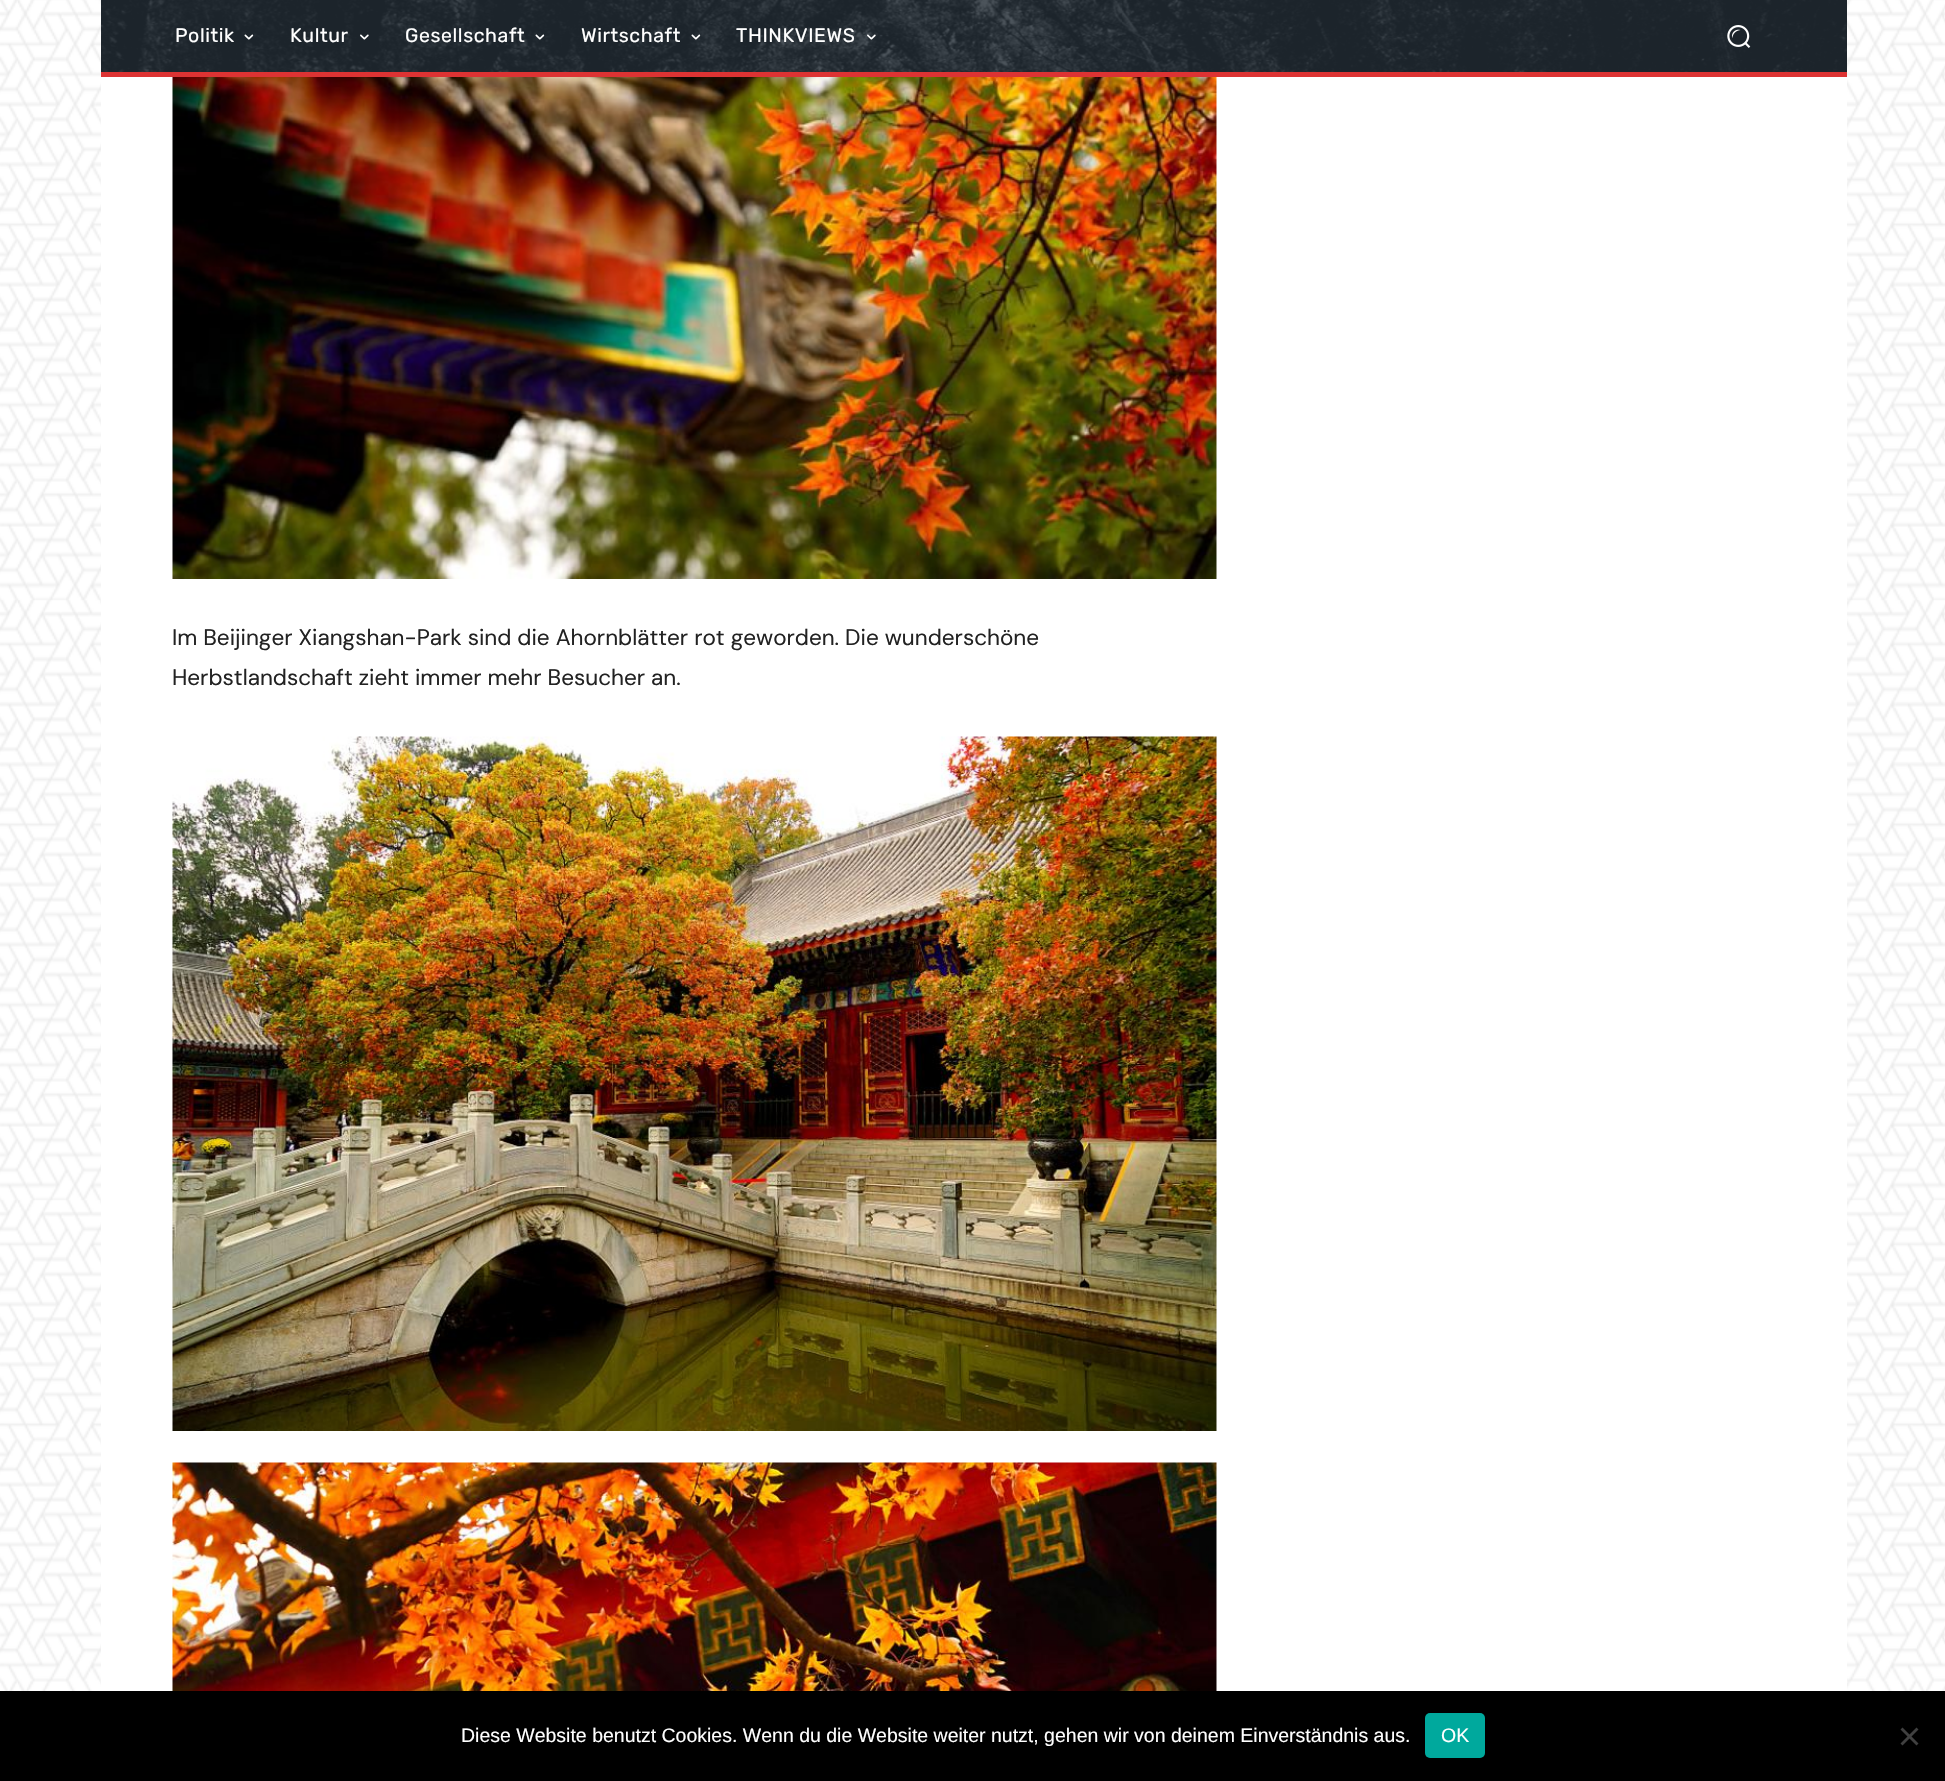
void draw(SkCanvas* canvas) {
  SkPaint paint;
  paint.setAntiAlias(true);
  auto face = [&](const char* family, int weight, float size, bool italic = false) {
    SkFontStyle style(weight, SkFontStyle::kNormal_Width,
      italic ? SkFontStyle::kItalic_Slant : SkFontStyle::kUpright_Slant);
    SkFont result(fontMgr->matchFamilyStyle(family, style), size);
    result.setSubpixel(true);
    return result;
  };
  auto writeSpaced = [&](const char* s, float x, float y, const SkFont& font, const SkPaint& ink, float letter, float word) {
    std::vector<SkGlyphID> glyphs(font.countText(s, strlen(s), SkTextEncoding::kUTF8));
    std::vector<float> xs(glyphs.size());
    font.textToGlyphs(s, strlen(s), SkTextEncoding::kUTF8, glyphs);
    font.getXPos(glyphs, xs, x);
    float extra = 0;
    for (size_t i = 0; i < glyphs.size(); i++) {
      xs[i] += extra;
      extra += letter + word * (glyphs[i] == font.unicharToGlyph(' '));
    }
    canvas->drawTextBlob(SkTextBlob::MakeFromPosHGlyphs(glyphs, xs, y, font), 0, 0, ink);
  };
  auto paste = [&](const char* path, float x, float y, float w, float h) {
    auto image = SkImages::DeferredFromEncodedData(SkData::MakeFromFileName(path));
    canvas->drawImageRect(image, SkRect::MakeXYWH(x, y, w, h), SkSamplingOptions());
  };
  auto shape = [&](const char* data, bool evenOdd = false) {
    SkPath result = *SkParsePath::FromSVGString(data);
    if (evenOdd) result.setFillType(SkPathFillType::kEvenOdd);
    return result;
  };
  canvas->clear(0xffffffff);
  paste("img/1.png", 0, 0, 1945, 1691);
  paint.setColor(0xff232d35);
  canvas->drawRect(SkRect::MakeXYWH(101, 0, 1746, 72), paint);
  paste("img/2.png", 101, 0, 1746, 72);
  paste("img/3.png", 244, 34, 10, 6);
  paste("img/4.png", 360, 34, 9, 6);
  paste("img/5.png", 535, 34, 10, 6);
  paste("img/6.png", 691, 34, 10, 6);
  paste("img/7.png", 867, 34, 9, 6);
  paste("img/8.png", 1727, 25, 24, 23);
  paint.setColor(0xffdd3333);
  canvas->drawRect(SkRect::MakeXYWH(101, 72, 1746, 5), paint);
  paint.setColor(0xffffffff);
  canvas->drawRect(SkRect::MakeXYWH(101, 77, 1746, 1614), paint);
  paste("img/9.png", 172, 77, 1045, 502);
  paste("img/10.png", 172, 736, 1045, 695);
  paste("img/11.png", 172, 1462, 1045, 229);
  paint.setColor(0xff000000);
  canvas->drawRect(SkRect::MakeXYWH(0, 1691, 1945, 90), paint);
  paint.setColor(0xff00a99d);
  canvas->drawRoundRect(SkRect::MakeXYWH(1425, 1713, 60, 45), 5, 5, paint);
  paint.setColor(0xff404040);
  canvas->drawPath(shape("M1916.5 1727.5L1918.5 1729.5L1902.5 1745.5L1900.5 1743.5Z"), paint);
  canvas->drawPath(shape("M1900.5 1729.5L1902.5 1727.5L1918.5 1743.5L1916.5 1745.5Z"), paint);
  auto f0 = face("Rubik", 400, 19.5f);
  paint.setColor(0xffffffff);
  {
    const struct { const char* s; float x, y; } items[] = {
      {"Politik", 175, 42},
      {"Kultur", 290, 42},
      {"Gesellschaft", 405, 42},
      {"Wirtschaft", 581, 42},
      {"THINKVIEWS", 736, 42},
    };
    for (auto [s, x, y] : items) {
      writeSpaced(s, x, y, f0, paint, 0.6f, 0);
    }
  }
  auto f1 = face("DM Sans", 400, 22.5f);
  paint.setColor(0xff222222);
  canvas->drawString("Im Beijinger Xiangshan-Park sind die Ahornblätter rot geworden. Die wunderschöne", 172, 645, f1, paint);
  canvas->drawString("Herbstlandschaft zieht immer mehr Besucher an.", 172, 685, f1, paint);
  auto f2 = face("Liberation Sans", 400, 19.5f);
  paint.setColor(0xffffffff);
  canvas->drawString("Diese Website benutzt Cookies. Wenn du die Website weiter nutzt, gehen wir von deinem Einverständnis aus.", 461, 1742, f2, paint);
  canvas->drawString("OK", 1441, 1742, f2, paint);
}
